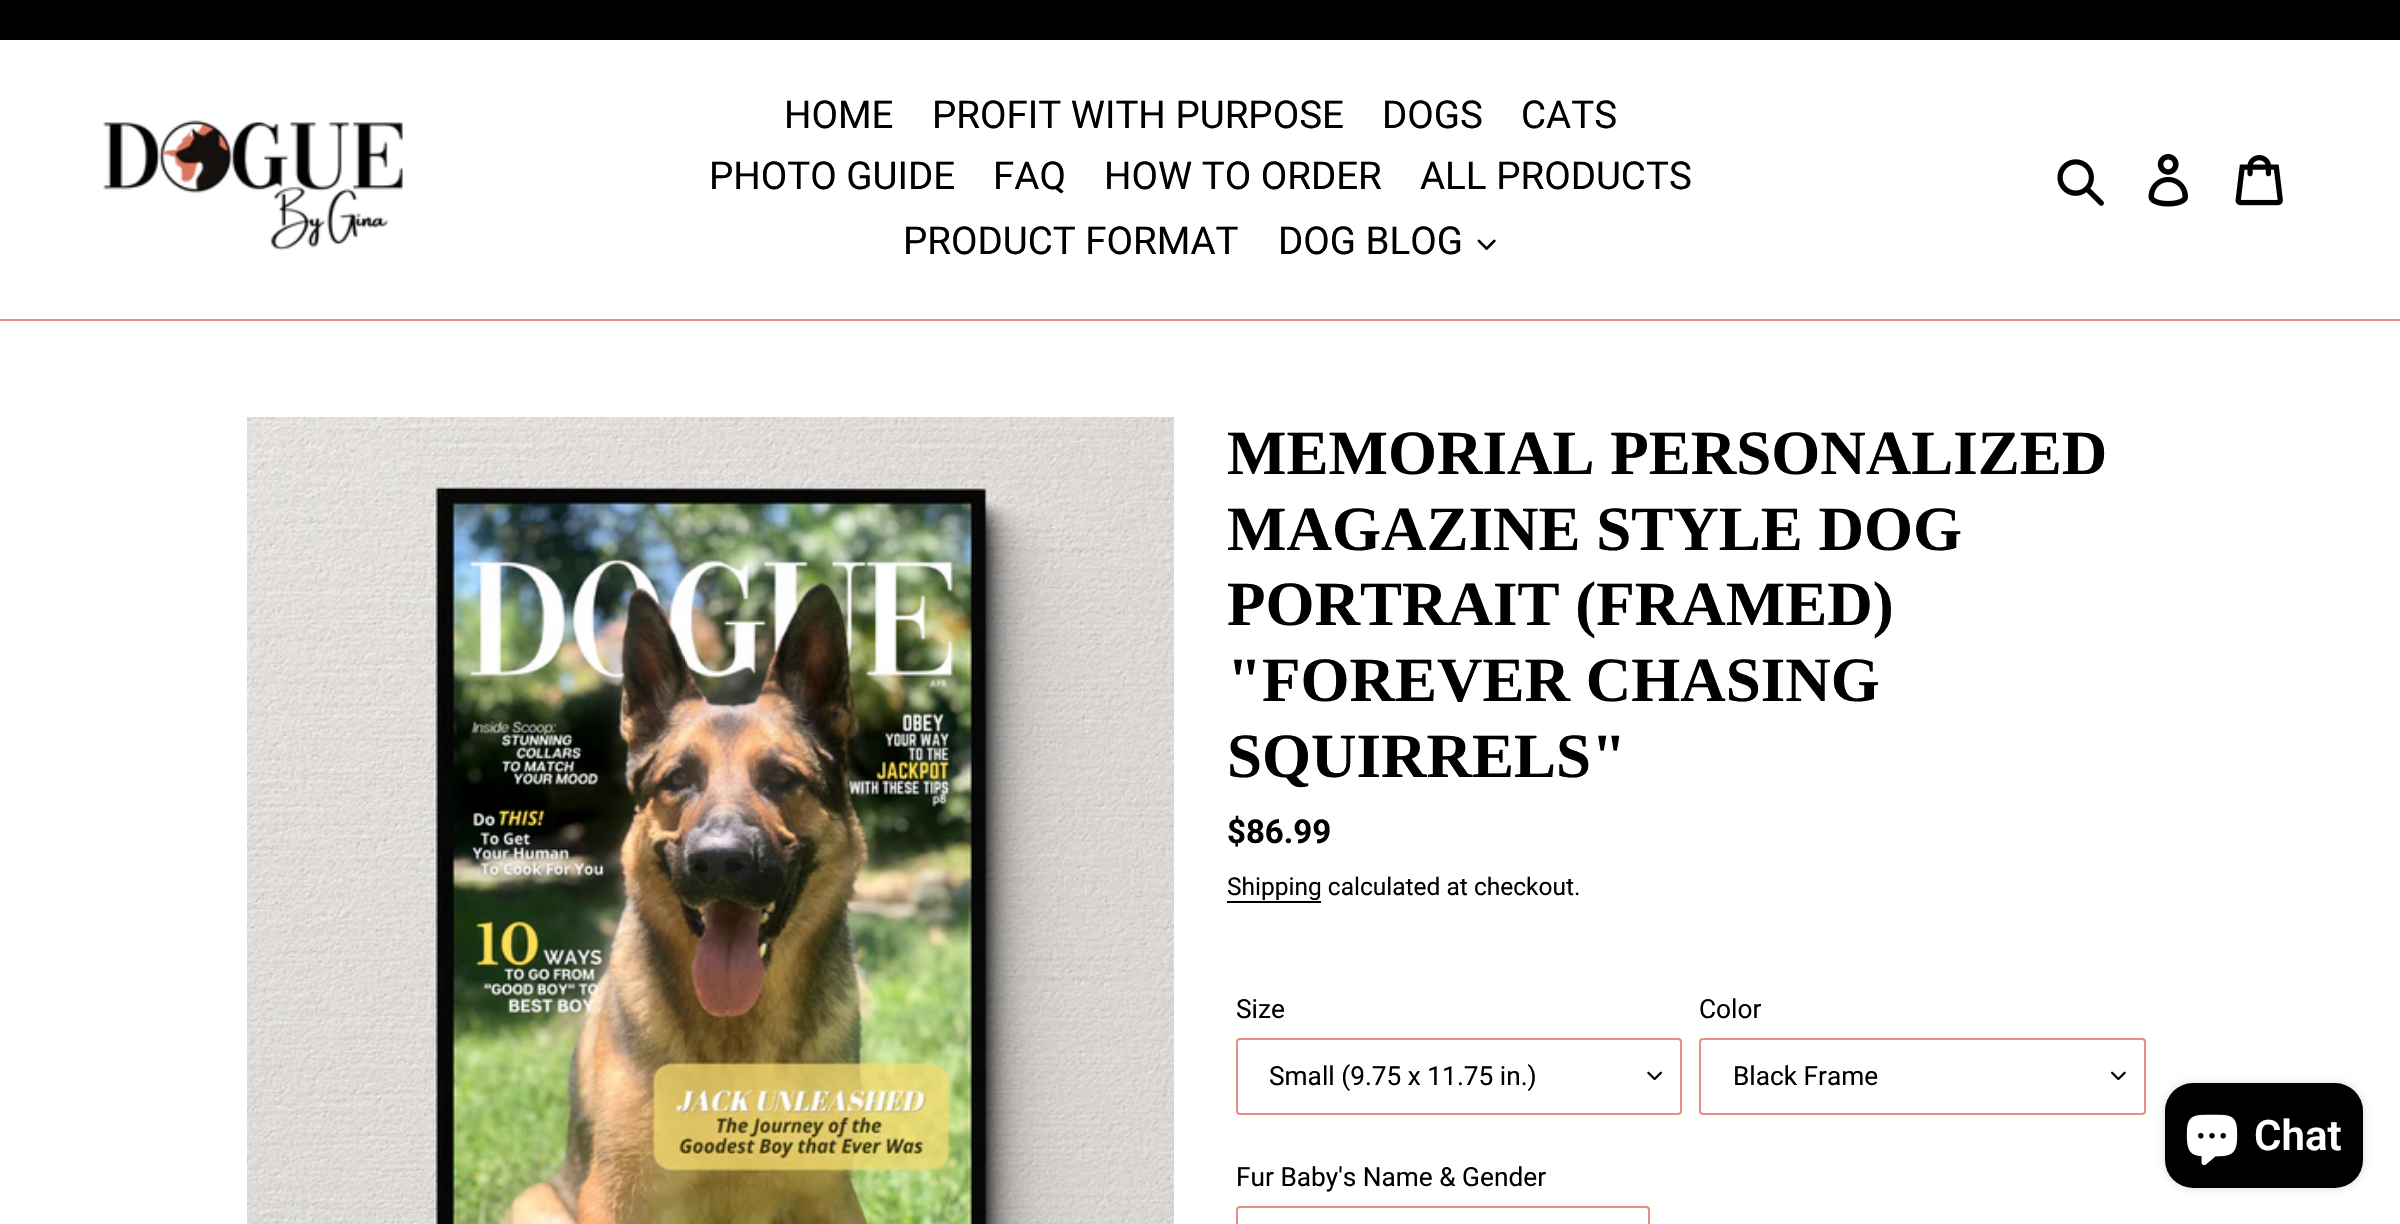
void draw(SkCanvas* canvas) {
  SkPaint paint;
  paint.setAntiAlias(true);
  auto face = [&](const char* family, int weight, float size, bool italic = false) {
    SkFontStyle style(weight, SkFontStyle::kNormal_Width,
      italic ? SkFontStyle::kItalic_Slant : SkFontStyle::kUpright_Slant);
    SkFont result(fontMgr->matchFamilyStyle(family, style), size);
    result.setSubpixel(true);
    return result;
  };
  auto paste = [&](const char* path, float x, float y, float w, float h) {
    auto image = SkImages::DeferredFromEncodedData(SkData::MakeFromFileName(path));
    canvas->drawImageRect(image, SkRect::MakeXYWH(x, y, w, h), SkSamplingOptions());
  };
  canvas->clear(0xffffffff);
  paint.setColor(0xff000000);
  canvas->drawRect(SkRect::MakeXYWH(0, 0, 2400, 40), paint);
  paint.setColor(0xffe48f83);
  canvas->drawRect(SkRect::MakeXYWH(0, 319, 2400, 2), paint);
  paste("img/1.png", 103, 120, 300, 131);
  paste("img/2.png", 1477, 239, 19, 11);
  paste("img/3.png", 2057, 159, 47, 47);
  paste("img/4.png", 2148, 154, 40, 53);
  paste("img/5.png", 2235, 155, 48, 51);
  paste("img/6.png", 247, 417, 927, 807);
  paint.setColor(0xff000000);
  canvas->drawRect(SkRect::MakeXYWH(1227, 901, 94, 2), paint);
  paste("img/7.png", 1647, 1071, 15, 10);
  paint.setStroke(true);
  paint.setStrokeWidth(2);
  paint.setColor(0xffe48f83);
  canvas->drawRoundRect(SkRect::MakeXYWH(1237, 1039, 444, 75), 3, 3, paint);
  paste("img/8.png", 2111, 1071, 15, 10);
  canvas->drawRoundRect(SkRect::MakeXYWH(1700, 1039, 445, 75), 3, 3, paint);
  canvas->drawRoundRect(SkRect::MakeXYWH(1237, 1207, 412, 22), 3, 3, paint);
  paint.setStroke(false);
  paint.setColor(0x26000000);
  paint.setMaskFilter(SkMaskFilter::MakeBlur(kNormal_SkBlurStyle, 4.5f));
  canvas->drawRoundRect(SkRect::MakeXYWH(2165, 1083, 198, 105), 28, 28, paint);
  paint.setMaskFilter(nullptr);
  paint.setColor(0xff000000);
  canvas->drawRoundRect(SkRect::MakeXYWH(2165, 1083, 198, 105), 28, 28, paint);
  paste("img/9.png", 2186, 1114, 52, 52);
  auto f0 = face("Roboto", 400, 38.5f);
  {
    const struct { const char* s; float x, y; } items[] = {
      {"HOME", 784, 128},
      {"PROFIT WITH PURPOSE", 932, 128},
      {"DOGS", 1382, 128},
      {"CATS", 1521, 128},
      {"PHOTO GUIDE", 709, 189},
      {"FAQ", 993, 189},
      {"HOW TO ORDER", 1104, 189},
      {"ALL PRODUCTS", 1420, 189},
      {"PRODUCT FORMAT", 903, 254},
      {"DOG BLOG", 1278, 254},
    };
    for (auto [s, x, y] : items) {
      canvas->drawString(s, x, y, f0, paint);
    }
  }
  auto f1 = face("Liberation Serif", 700, 63);
  {
    const struct { const char* s; float x, y; } items[] = {
      {"MEMORIAL PERSONALIZED", 1227, 474},
      {"MAGAZINE STYLE DOG", 1227, 550},
      {"PORTRAIT (FRAMED)", 1227, 625},
      {"\"FOREVER CHASING", 1227, 701},
      {"SQUIRRELS\"", 1227, 777},
    };
    for (auto [s, x, y] : items) {
      canvas->drawString(s, x, y, f1, paint);
    }
  }
  auto f2 = face("Roboto", 700, 33);
  canvas->drawString("$86.99", 1227, 843, f2, paint);
  auto f3 = face("Roboto", 400, 24.5f);
  canvas->drawString("Shipping calculated at checkout.", 1227, 895, f3, paint);
  auto f4 = face("Roboto", 400, 26.25f);
  {
    const struct { const char* s; float x, y; } items[] = {
      {"Size", 1236, 1018},
      {"Small (9.75 x 11.75 in.)", 1269, 1085},
      {"Color", 1699, 1018},
      {"Black Frame", 1733, 1085},
      {"Fur Baby's Name & Gender", 1236, 1186},
    };
    for (auto [s, x, y] : items) {
      canvas->drawString(s, x, y, f4, paint);
    }
  }
  auto f5 = face("Roboto", 600, 42);
  paint.setColor(0xffffffff);
  canvas->drawString("Chat", 2254, 1150, f5, paint);
}
